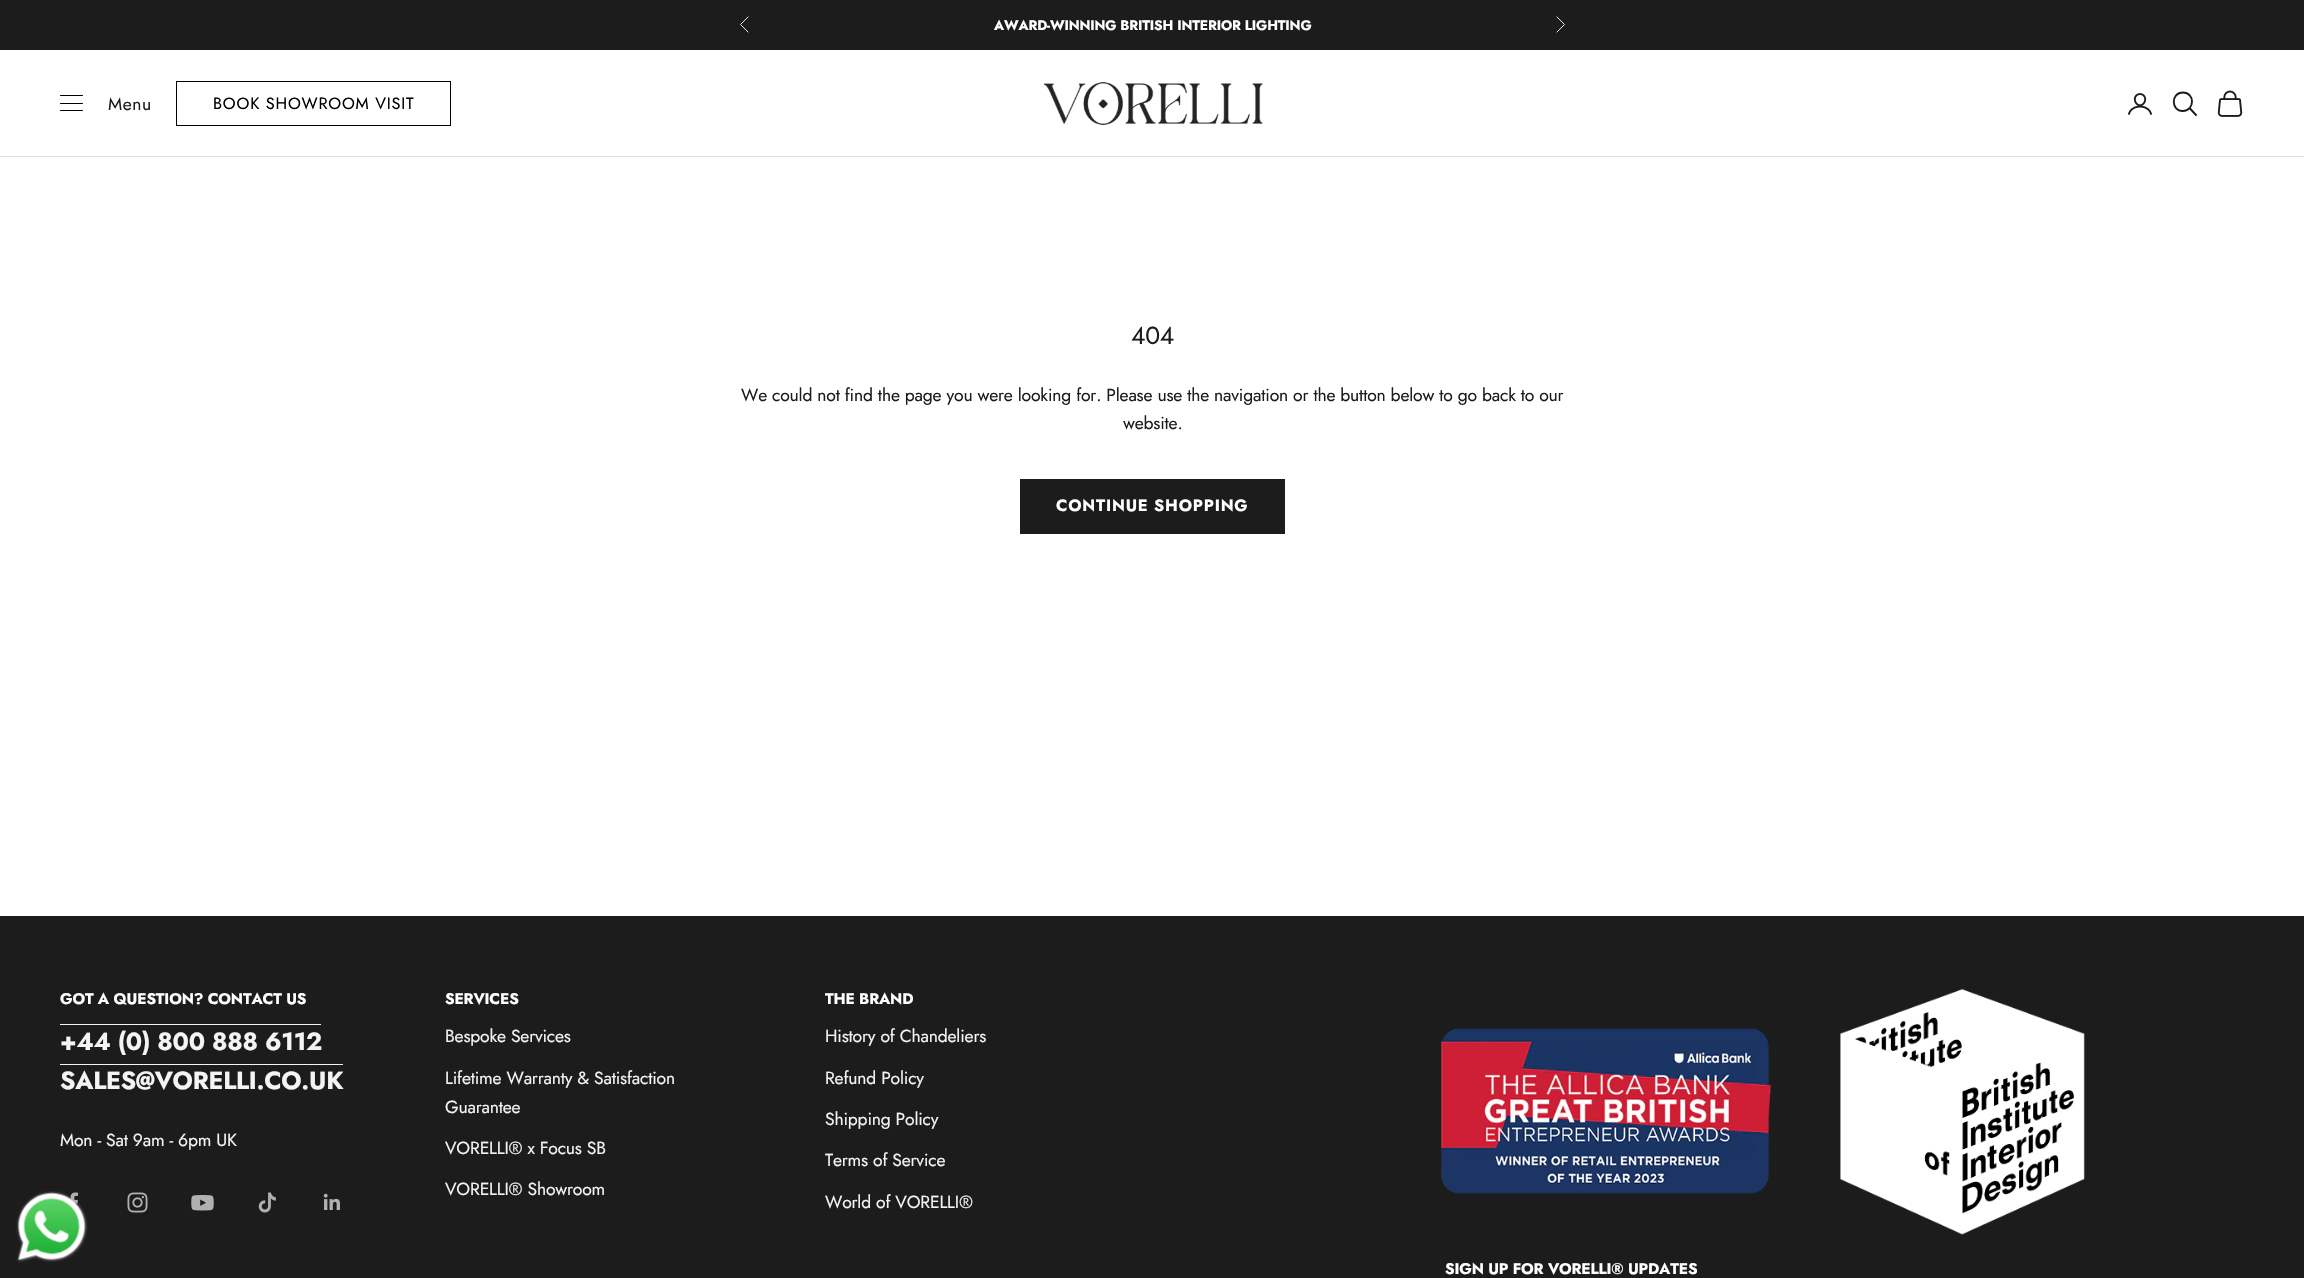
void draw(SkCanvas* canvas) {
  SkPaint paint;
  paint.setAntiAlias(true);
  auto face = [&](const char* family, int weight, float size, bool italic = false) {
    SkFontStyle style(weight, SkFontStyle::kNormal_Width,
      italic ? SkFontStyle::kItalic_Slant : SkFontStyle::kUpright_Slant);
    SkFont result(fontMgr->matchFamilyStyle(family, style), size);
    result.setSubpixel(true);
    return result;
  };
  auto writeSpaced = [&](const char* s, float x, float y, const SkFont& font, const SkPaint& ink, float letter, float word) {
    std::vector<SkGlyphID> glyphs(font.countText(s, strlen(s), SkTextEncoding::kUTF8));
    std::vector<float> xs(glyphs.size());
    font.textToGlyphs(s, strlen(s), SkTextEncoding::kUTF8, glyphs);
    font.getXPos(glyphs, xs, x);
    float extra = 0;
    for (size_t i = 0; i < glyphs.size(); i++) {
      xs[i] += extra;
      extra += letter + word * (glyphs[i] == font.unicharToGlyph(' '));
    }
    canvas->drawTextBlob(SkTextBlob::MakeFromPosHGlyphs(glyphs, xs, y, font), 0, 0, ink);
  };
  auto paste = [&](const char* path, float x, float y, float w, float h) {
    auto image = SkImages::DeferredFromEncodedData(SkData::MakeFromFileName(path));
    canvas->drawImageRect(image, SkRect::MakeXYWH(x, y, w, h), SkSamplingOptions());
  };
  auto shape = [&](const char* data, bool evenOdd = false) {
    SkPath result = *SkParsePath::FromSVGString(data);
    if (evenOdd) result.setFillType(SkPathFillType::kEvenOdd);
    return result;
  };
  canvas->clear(0xffffffff);
  paint.setColor(0xff1c1c1c);
  canvas->drawRect(SkRect::MakeXYWH(0, 0, 2304, 50), paint);
  paint.setStroke(true);
  paint.setStrokeWidth(0.9f);
  paint.setStrokeCap(SkPaint::kSquare_Cap);
  paint.setColor(0xffffffff);
  canvas->drawPath(shape("M748 17L740.5 24.5L748 32"), paint);
  canvas->drawPath(shape("M1557 32L1564.5 24.5L1557 17"), paint);
  paint.setStroke(false);
  paint.setColor(0xffdddddd);
  canvas->drawRect(SkRect::MakeXYWH(0, 156, 2304, 1), paint);
  paint.setColor(0xff000000);
  canvas->drawRoundRect(SkRect::MakeXYWH(60, 95, 23, 1), 0.5f, 0.5f, paint);
  canvas->drawRoundRect(SkRect::MakeXYWH(60, 103, 23, 1), 0.5f, 0.5f, paint);
  canvas->drawRoundRect(SkRect::MakeXYWH(60, 110, 23, 1), 0.5f, 0.5f, paint);
  paint.setStroke(true);
  paint.setStrokeWidth(1);
  paint.setStrokeCap(SkPaint::kButt_Cap);
  canvas->drawRect(SkRect::MakeXYWH(176.5f, 81.5f, 274, 44), paint);
  paste("img/1.png", 1043, 82, 220, 43);
  paste("img/2.png", 2127, 93, 26, 22);
  paint.setStrokeWidth(1.9f);
  paint.setColor(0xff1c1c1c);
  canvas->drawPath(shape("M2183 92.5C2170.5 92.5 2171 111.5 2183 111C2195 110.5 2195 92.5 2183 92.5Z"), paint);
  paint.setStrokeCap(SkPaint::kRound_Cap);
  canvas->drawPath(shape("M2190 108.5L2196 115"), paint);
  paste("img/3.png", 2217, 90, 26, 27);
  paint.setStroke(false);
  canvas->drawRect(SkRect::MakeXYWH(0, 916, 2304, 362), paint);
  paste("img/5.png", 69, 1192, 9, 12);
  paste("img/4.png", 16, 1191, 72, 72);
  canvas->drawRect(SkRect::MakeXYWH(1020.5f, 479.5f, 264, 54), paint);
  paint.setStroke(true);
  paint.setStrokeWidth(1);
  paint.setStrokeCap(SkPaint::kButt_Cap);
  canvas->drawRect(SkRect::MakeXYWH(1020.5f, 479.5f, 264, 54), paint);
  paint.setStroke(false);
  paint.setColor(0xfff4f4f4);
  canvas->drawRect(SkRect::MakeXYWH(60, 1024, 261, 1), paint);
  canvas->drawRect(SkRect::MakeXYWH(60, 1064, 283, 1), paint);
  paste("img/6.png", 127, 1192, 21, 21);
  paste("img/7.png", 191, 1195, 23, 16);
  paste("img/8.png", 258, 1192, 18, 21);
  paste("img/9.png", 323, 1193, 17, 17);
  paste("img/10.png", 1441, 1028, 330, 166);
  paste("img/11.png", 1840, 989, 245, 246);
  auto f0 = face("Jost", 700, 13.75f);
  paint.setColor(0xffffffff);
  writeSpaced("AWARD-WINNING BRITISH INTERIOR LIGHTING", 994, 30, f0, paint, -0.15f, 0);
  auto f1 = face("Jost", 400, 17.5f);
  paint.setColor(0xff1c1c1c);
  writeSpaced("Menu", 108, 110, f1, paint, 0.5f, 0);
  auto f2 = face("Jost", 400, 16.25f);
  paint.setColor(0xff000000);
  writeSpaced("BOOK SHOWROOM VISIT", 213, 109, f2, paint, 0.8f, 0);
  auto f3 = face("Jost", 400, 24.75f);
  paint.setColor(0xff1c1c1c);
  writeSpaced("404", 1131, 344, f3, paint, -0.25f, 0);
  writeSpaced("We could not find the page you were looking for. Please use the navigation or the button below to go back to our", 741, 401, f1, paint, -0.18f, 0);
  writeSpaced("website.", 1123, 429, f1, paint, -0.18f, 0);
  auto f4 = face("Jost", 700, 16.25f);
  paint.setColor(0xffffffff);
  writeSpaced("CONTINUE SHOPPING", 1056, 511, f4, paint, 0.8f, 0);
  auto f5 = face("Jost", 700, 15.4f);
  writeSpaced("GOT A QUESTION? CONTACT US", 60, 1004, f5, paint, -0.15f, 0);
  auto f6 = face("Jost", 700, 24.75f);
  paint.setColor(0xfff4f4f4);
  writeSpaced("+44 (0) 800 888 6112", 60, 1050, f6, paint, -0.25f, 0);
  writeSpaced("SALES@VORELLI.CO.UK", 60, 1089, f6, paint, -0.25f, 0);
  writeSpaced("Mon - Sat 9am - 6pm UK", 60, 1146, f1, paint, -0.18f, 0);
  paint.setColor(0xffffffff);
  writeSpaced("SERVICES", 445, 1004, f5, paint, -0.15f, 0);
  paint.setColor(0xfff4f4f4);
  {
    const struct { const char* s; float x, y; } items[] = {
      {"Bespoke Services", 445, 1042},
      {"Lifetime Warranty & Satisfaction", 445, 1084},
      {"Guarantee", 445, 1113},
      {"VORELLI® x Focus SB", 445, 1154},
      {"VORELLI® Showroom", 445, 1195},
    };
    for (auto [s, x, y] : items) {
      writeSpaced(s, x, y, f1, paint, -0.18f, 0);
    }
  }
  paint.setColor(0xffffffff);
  writeSpaced("THE BRAND", 825, 1004, f5, paint, -0.15f, 0);
  paint.setColor(0xfff4f4f4);
  {
    const struct { const char* s; float x, y; } items[] = {
      {"History of Chandeliers", 825, 1042},
      {"Refund Policy", 825, 1084},
      {"Shipping Policy", 825, 1125},
      {"Terms of Service", 825, 1166},
      {"World of VORELLI®", 825, 1208},
    };
    for (auto [s, x, y] : items) {
      writeSpaced(s, x, y, f1, paint, -0.18f, 0);
    }
  }
  paint.setColor(0xffffffff);
  writeSpaced("SIGN UP FOR VORELLI® UPDATES", 1445, 1274, f5, paint, -0.15f, 0);
}
